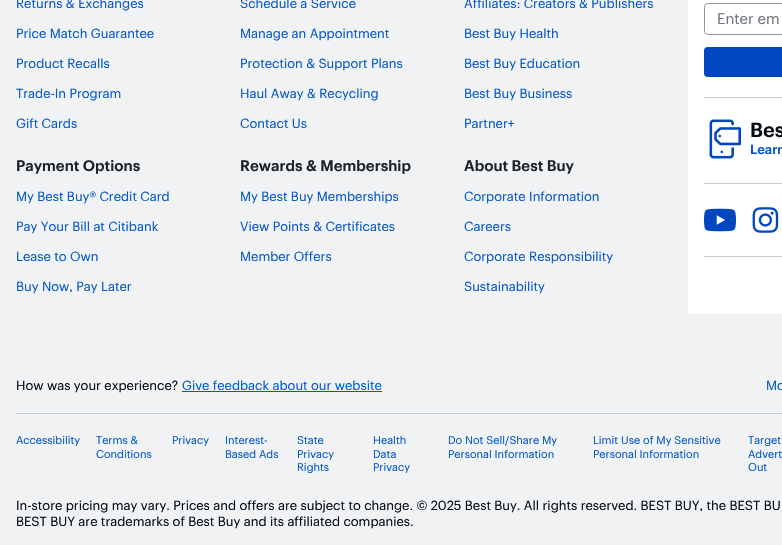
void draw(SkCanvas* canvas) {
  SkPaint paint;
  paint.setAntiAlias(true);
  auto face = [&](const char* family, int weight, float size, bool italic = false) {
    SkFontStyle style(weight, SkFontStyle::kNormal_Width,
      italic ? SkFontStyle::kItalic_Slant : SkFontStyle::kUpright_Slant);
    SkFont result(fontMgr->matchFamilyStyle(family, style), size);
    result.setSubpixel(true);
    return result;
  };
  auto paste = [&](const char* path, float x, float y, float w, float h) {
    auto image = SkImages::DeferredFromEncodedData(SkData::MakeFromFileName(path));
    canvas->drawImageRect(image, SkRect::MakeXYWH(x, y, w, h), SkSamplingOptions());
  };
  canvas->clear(0xfff0f2f4);
  paint.setColor(0xffffffff);
  canvas->drawRect(SkRect::MakeXYWH(688, 0, 94, 314), paint);
  paint.setStroke(true);
  paint.setStrokeWidth(1);
  paint.setColor(0xff90959e);
  canvas->drawRoundRect(SkRect::MakeXYWH(704.5f, 3.5f, 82, 31), 3.5f, 3.5f, paint);
  paint.setStroke(false);
  paint.setColor(0xff0046be);
  canvas->drawRoundRect(SkRect::MakeXYWH(704, 47, 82, 30), 4, 4, paint);
  paint.setColor(0xffc5cbd5);
  canvas->drawRect(SkRect::MakeXYWH(704, 97, 78, 1), paint);
  paste("img/1.png", 709, 119, 32, 40);
  canvas->drawRect(SkRect::MakeXYWH(704, 183, 78, 1), paint);
  paste("img/2.png", 704, 208, 32, 24);
  paste("img/3.png", 752, 207, 27, 26);
  {
    const struct { float x, y, w, h; SkColor color; } items[] = {
      {704, 256, 78, 1, 0xffc5cbd5},
      {182, 391, 200, 1, 0xff0457c8},
      {16, 413, 766, 1, 0xffc5cbd5},
    };
    for (auto [x, y, w, h, color] : items) {
      paint.setColor(color);
      canvas->drawRect(SkRect::MakeXYWH(x, y, w, h), paint);
    }
  }
  auto f0 = face("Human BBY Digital", 400, 13);
  paint.setColor(0xff0457c8);
  {
    const struct { const char* s; float x, y; } items[] = {
      {"Returns & Exchanges", 16, 8},
      {"Price Match Guarantee", 16, 38},
      {"Product Recalls", 16, 68},
      {"Trade-In Program", 16, 98},
      {"Gift Cards", 16, 128},
      {"Schedule a Service", 240, 8},
      {"Manage an Appointment", 240, 38},
      {"Protection & Support Plans", 240, 68},
      {"Haul Away & Recycling", 240, 98},
      {"Contact Us", 240, 128},
      {"Affiliates: Creators & Publishers", 464, 8},
      {"Best Buy Health", 464, 38},
      {"Best Buy Education", 464, 68},
      {"Best Buy Business", 464, 98},
      {"Partner+", 464, 128},
    };
    for (auto [s, x, y] : items) {
      canvas->drawString(s, x, y, f0, paint);
    }
  }
  auto f1 = face("Human BBY Digital", 500, 15);
  paint.setColor(0xff1d252c);
  canvas->drawString("Payment Options", 16, 171, f1, paint);
  paint.setColor(0xff0457c8);
  {
    const struct { const char* s; float x, y; } items[] = {
      {"My Best Buy® Credit Card", 16, 201},
      {"Pay Your Bill at Citibank", 16, 231},
      {"Lease to Own", 16, 261},
      {"Buy Now, Pay Later", 16, 291},
    };
    for (auto [s, x, y] : items) {
      canvas->drawString(s, x, y, f0, paint);
    }
  }
  paint.setColor(0xff1d252c);
  canvas->drawString("Rewards & Membership", 240, 171, f1, paint);
  paint.setColor(0xff0457c8);
  {
    const struct { const char* s; float x, y; } items[] = {
      {"My Best Buy Memberships", 240, 201},
      {"View Points & Certificates", 240, 231},
      {"Member Offers", 240, 261},
    };
    for (auto [s, x, y] : items) {
      canvas->drawString(s, x, y, f0, paint);
    }
  }
  paint.setColor(0xff1d252c);
  canvas->drawString("About Best Buy", 464, 171, f1, paint);
  paint.setColor(0xff0457c8);
  {
    const struct { const char* s; float x, y; } items[] = {
      {"Corporate Information", 464, 201},
      {"Careers", 464, 231},
      {"Corporate Responsibility", 464, 261},
      {"Sustainability", 464, 291},
    };
    for (auto [s, x, y] : items) {
      canvas->drawString(s, x, y, f0, paint);
    }
  }
  auto f2 = face("Human BBY Digital", 400, 15);
  paint.setColor(0xff70757d);
  canvas->drawString("Enter em", 717, 24, f2, paint);
  auto f3 = face("Human BBY Digital", 500, 20);
  paint.setColor(0xff040c13);
  canvas->drawString("Bes", 750, 137, f3, paint);
  auto f4 = face("Human BBY Digital", 500, 13);
  paint.setColor(0xff0457c8);
  canvas->drawString("Learn", 750, 154, f4, paint);
  paint.setColor(0xff040c13);
  canvas->drawString("How was your experience?", 16, 390, f0, paint);
  paint.setColor(0xff0457c8);
  canvas->drawString("Give feedback about our website", 182, 390, f0, paint);
  canvas->drawString("Mo", 766, 390, f0, paint);
  auto f5 = face("Human BBY Digital", 400, 11);
  {
    const struct { const char* s; float x, y; } items[] = {
      {"Accessibility", 16, 444},
      {"Terms &", 96, 444},
      {"Conditions", 96, 458},
      {"Privacy", 172, 444},
      {"Interest-", 225, 444},
      {"Based Ads", 225, 458},
      {"State", 297, 444},
      {"Privacy", 297, 458},
      {"Rights", 297, 471},
      {"Health", 373, 444},
      {"Data", 373, 458},
      {"Privacy", 373, 471},
      {"Do Not Sell/Share My", 448, 444},
      {"Personal Information", 448, 458},
      {"Limit Use of My Sensitive", 593, 444},
      {"Personal Information", 593, 458},
      {"Target", 748, 444},
      {"Advert", 748, 458},
      {"Out", 748, 471},
    };
    for (auto [s, x, y] : items) {
      canvas->drawString(s, x, y, f5, paint);
    }
  }
  paint.setColor(0xff040c13);
  canvas->drawString("In-store pricing may vary. Prices and offers are subject to change. © 2025 Best Buy. All rights reserved. BEST BUY, the BEST BU", 16, 510, f0, paint);
  canvas->drawString("BEST BUY are trademarks of Best Buy and its affiliated companies.", 16, 526, f0, paint);
}
